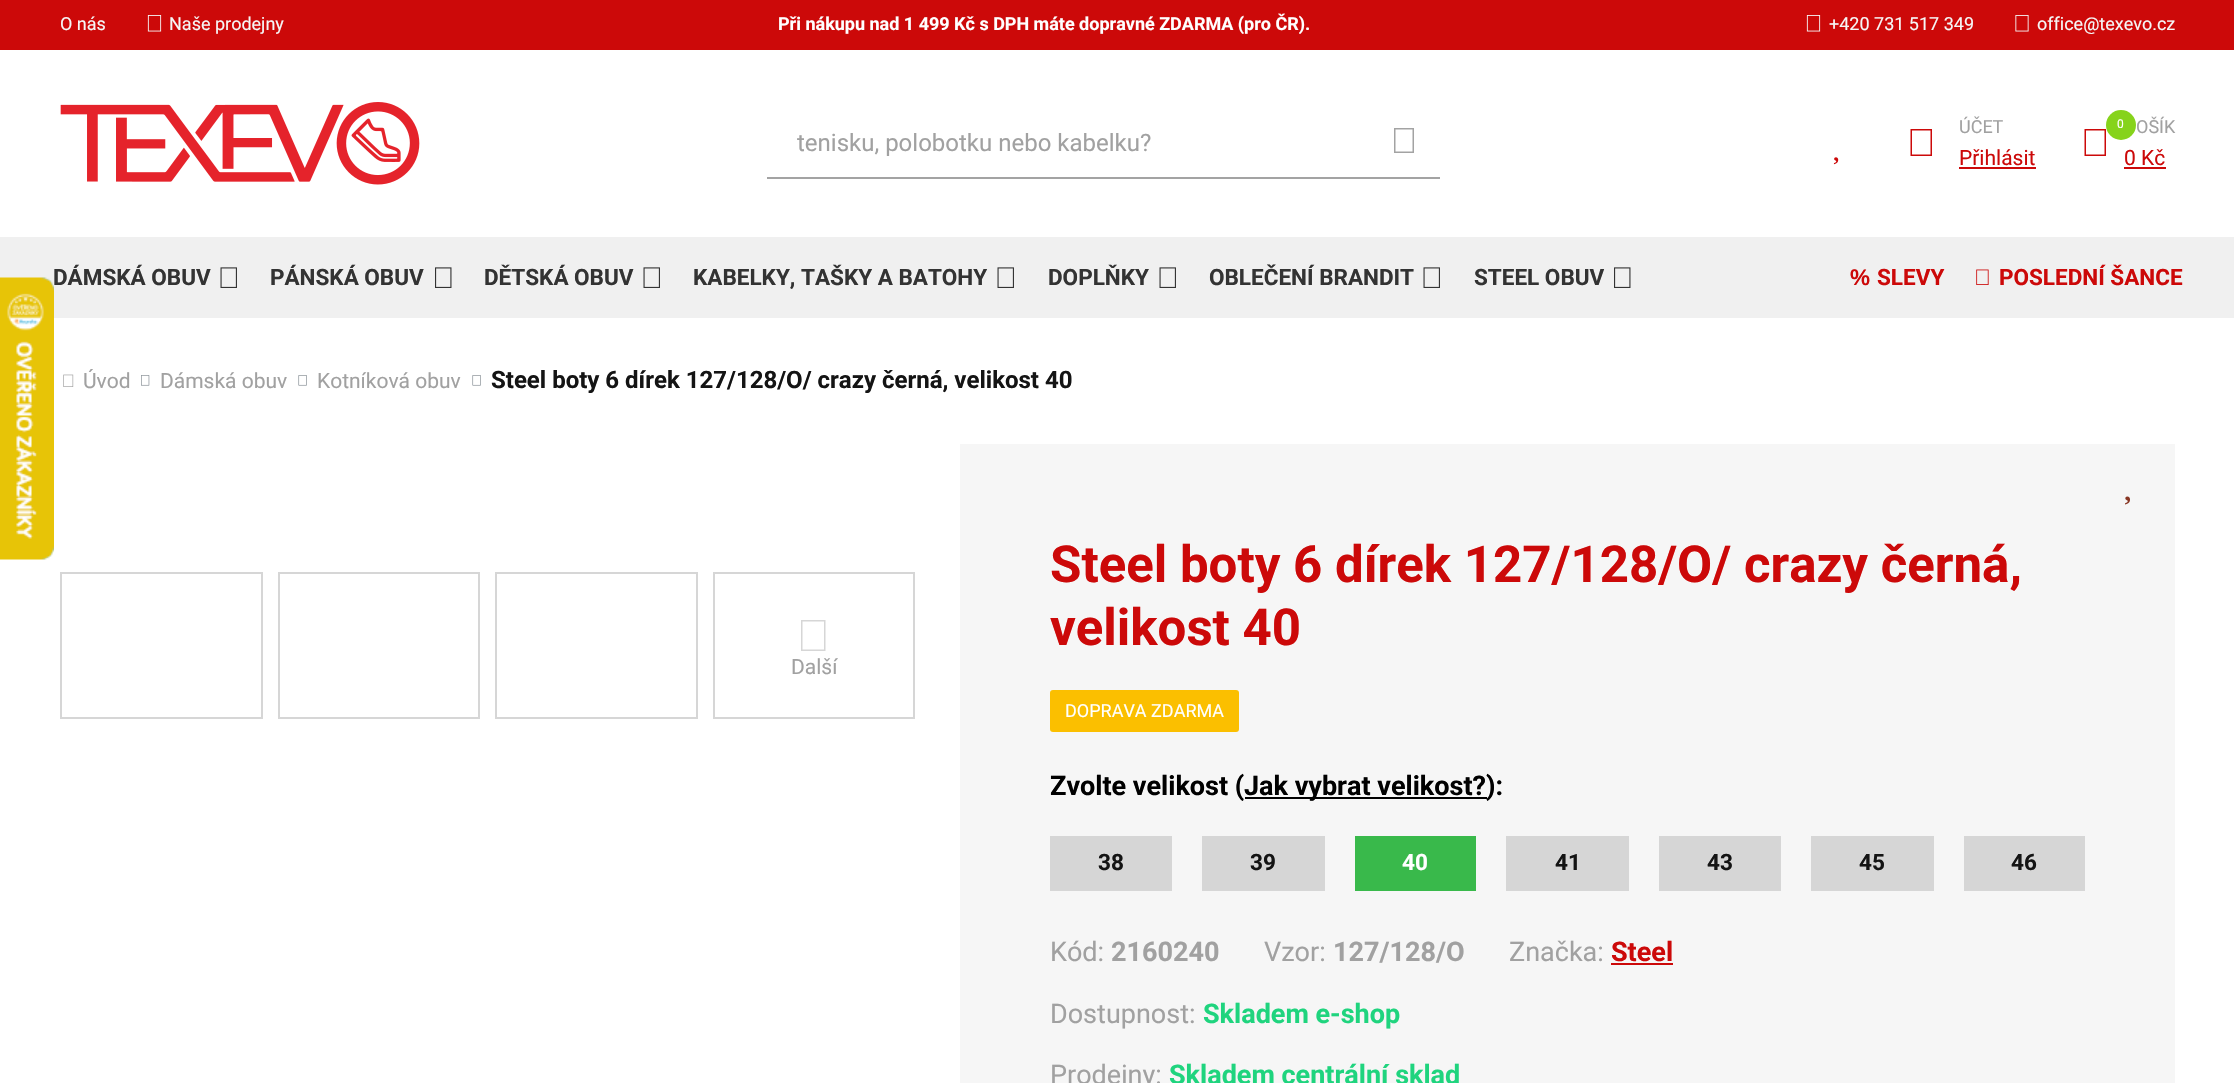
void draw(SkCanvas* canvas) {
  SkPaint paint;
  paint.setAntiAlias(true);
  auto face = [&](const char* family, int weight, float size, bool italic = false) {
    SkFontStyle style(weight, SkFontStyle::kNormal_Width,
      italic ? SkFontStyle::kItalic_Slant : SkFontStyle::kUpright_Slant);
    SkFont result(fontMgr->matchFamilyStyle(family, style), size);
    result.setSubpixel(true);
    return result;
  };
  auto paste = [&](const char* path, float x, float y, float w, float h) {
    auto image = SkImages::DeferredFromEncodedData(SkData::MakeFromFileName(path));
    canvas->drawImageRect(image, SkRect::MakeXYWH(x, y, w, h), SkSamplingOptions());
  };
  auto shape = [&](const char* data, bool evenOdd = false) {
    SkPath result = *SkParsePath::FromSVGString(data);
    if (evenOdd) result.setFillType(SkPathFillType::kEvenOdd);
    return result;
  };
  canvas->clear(0xffffffff);
  paint.setColor(0xffcc0909);
  canvas->drawRect(SkRect::MakeXYWH(0, 0, 2234, 50), paint);
  paste("img/2.png", 147, 15, 15, 17);
  paste("img/2.png", 1806, 15, 15, 17);
  paste("img/3.png", 2015, 15, 14, 17);
  paste("img/4.png", 60, 102, 360, 83);
  paint.setColor(0xffa3a3a3);
  canvas->drawRect(SkRect::MakeXYWH(765, 177, 675, 2), paint);
  paint.setColor(0xffffffff);
  canvas->drawRect(SkRect::MakeXYWH(765, 177, 2, 2), paint);
  paint.setColor(0xffa3a3a3);
  canvas->drawPath(shape("M1394 128H1414V153H1394ZM1395.5 129.5V151.5H1412.5V129.5Z"), paint);
  paste("img/5.png", 1833, 157, 6, 8);
  paint.setColor(0xffcc0909);
  canvas->drawPath(shape("M1910.5 129H1932V156H1910.5ZM1912 130.5V154.5H1930.5V130.5Z"), paint);
  canvas->drawRect(SkRect::MakeXYWH(1959, 167, 77, 2), paint);
  paint.setColor(0xff86d31b);
  canvas->drawCircle(2121, 125, 15, paint);
  paint.setColor(0xffcc0909);
  canvas->drawRect(SkRect::MakeXYWH(2124, 167, 42, 2), paint);
  canvas->drawPath(shape("M2084.5 129H2106V156H2084.5ZM2086 130.5V154.5H2104.5V130.5Z"), paint);
  paint.setColor(0xfff0f0f0);
  canvas->drawRect(SkRect::MakeXYWH(0, 237, 2234, 81), paint);
  paste("img/6.png", 220, 267, 17, 21);
  paste("img/7.png", 435, 267, 17, 21);
  paste("img/6.png", 643, 267, 17, 21);
  paste("img/6.png", 997, 267, 17, 21);
  paste("img/6.png", 1159, 267, 17, 21);
  paste("img/6.png", 1423, 267, 17, 21);
  paste("img/7.png", 1614, 267, 17, 21);
  paste("img/8.png", 1976, 269, 13, 16);
  paste("img/9.png", 63, 374, 11, 13);
  paste("img/10.png", 141, 375, 9, 11);
  paste("img/11.png", 298, 375, 9, 11);
  paste("img/11.png", 472, 375, 9, 11);
  paint.setStroke(true);
  paint.setStrokeWidth(2);
  paint.setColor(0xffd6d6d6);
  canvas->drawRect(SkRect::MakeXYWH(61, 573, 201, 145), paint);
  canvas->drawRect(SkRect::MakeXYWH(279, 573, 200, 145), paint);
  canvas->drawRect(SkRect::MakeXYWH(496, 573, 201, 145), paint);
  canvas->drawRect(SkRect::MakeXYWH(714, 573, 200, 145), paint);
  paint.setStroke(false);
  canvas->drawPath(shape("M801 620H825.5V651H801ZM802.5 621.5V649.5H824V621.5Z"), paint);
  paint.setColor(0xfff6f6f6);
  canvas->drawRect(SkRect::MakeXYWH(960, 444, 1215, 639), paint);
  paste("img/12.png", 2125, 496, 5, 9);
  paint.setColor(0xfffbbf00);
  canvas->drawRoundRect(SkRect::MakeXYWH(1050, 690, 189, 42), 3, 3, paint);
  {
    const struct { float x, y, w, h; SkColor color; } items[] = {
      {1245, 797, 242, 2, 0xff000000},
      {1050, 836, 122, 55, 0xffd6d6d6},
      {1202, 836, 123, 55, 0xffd6d6d6},
      {1355, 836, 121, 55, 0xff39b94b},
      {1506, 836, 123, 55, 0xffd6d6d6},
      {1659, 836, 122, 55, 0xffd6d6d6},
      {1811, 836, 123, 55, 0xffd6d6d6},
      {1964, 836, 121, 55, 0xffd6d6d6},
      {1611, 963, 62, 2, 0xffcc0909},
    };
    for (auto [x, y, w, h, color] : items) {
      paint.setColor(color);
      canvas->drawRect(SkRect::MakeXYWH(x, y, w, h), paint);
    }
  }
  auto f0 = face("Roboto", 400, 18);
  paint.setColor(0xfff6f6f6);
  canvas->drawString("O nás", 60, 30, f0, paint);
  canvas->drawString("Naše prodejny", 169, 30, f0, paint);
  auto f1 = face("Roboto", 700, 18);
  paint.setColor(0xffffffff);
  canvas->drawString("Při nákupu nad 1 499 Kč s DPH máte dopravné ZDARMA (pro ČR).", 778, 30, f1, paint);
  paint.setColor(0xfff6f6f6);
  canvas->drawString("+420 731 517 349", 1829, 30, f0, paint);
  canvas->drawString("office@texevo.cz", 2037, 30, f0, paint);
  auto f2 = face("Roboto", 400, 24);
  paint.setColor(0xffa1a1a1);
  canvas->drawString("tenisku, polobotku nebo kabelku?", 797, 151, f2, paint);
  canvas->drawString("ÚČET", 1959, 133, f0, paint);
  auto f3 = face("Roboto", 400, 21);
  paint.setColor(0xffcc0909);
  canvas->drawString("Přihlásit", 1959, 165, f3, paint);
  auto f4 = face("Roboto", 400, 12);
  paint.setColor(0xffffffff);
  canvas->drawString("0", 2117, 128, f4, paint);
  paint.setColor(0xffa1a1a1);
  canvas->drawString("OŠÍK", 2136, 133, f0, paint);
  paint.setColor(0xffcc0909);
  canvas->drawString("0 Kč", 2124, 165, f3, paint);
  auto f5 = face("Roboto", 700, 22.5f);
  paint.setColor(0xff333333);
  canvas->drawString("DÁMSKÁ OBUV", 53, 285, f5, paint);
  paste("img/1.png", 0, 277, 54, 283);
  {
    const struct { const char* s; float x, y; } items[] = {
      {"PÁNSKÁ OBUV", 270, 285},
      {"DĚTSKÁ OBUV", 484, 285},
      {"KABELKY, TAŠKY A BATOHY", 693, 285},
      {"DOPLŇKY", 1048, 285},
      {"OBLEČENÍ BRANDIT", 1209, 285},
      {"STEEL OBUV", 1474, 285},
    };
    for (auto [s, x, y] : items) {
      canvas->drawString(s, x, y, f5, paint);
    }
  }
  auto f6 = face("Liberation Sans", 700, 22.5f);
  paint.setColor(0xffcc0909);
  canvas->drawString("%", 1850, 285, f6, paint);
  canvas->drawString("SLEVY", 1877, 285, f5, paint);
  canvas->drawString("POSLEDNÍ ŠANCE", 1999, 285, f5, paint);
  paint.setColor(0xffa1a1a1);
  {
    const struct { const char* s; float x, y; } items[] = {
      {"Úvod", 83, 388},
      {"Dámská obuv", 160, 388},
      {"Kotníková obuv", 317, 388},
    };
    for (auto [s, x, y] : items) {
      canvas->drawString(s, x, y, f3, paint);
    }
  }
  auto f7 = face("Roboto", 700, 24);
  paint.setColor(0xff141414);
  canvas->drawString("Steel boty 6 dírek 127/128/O/ crazy černá, velikost 40", 491, 388, f7, paint);
  paint.setColor(0xffa1a1a1);
  canvas->drawString("Další", 791, 674, f3, paint);
  auto f8 = face("Roboto", 700, 51);
  paint.setColor(0xffcc0909);
  canvas->drawString("Steel boty 6 dírek 127/128/O/ crazy černá,", 1050, 582, f8, paint);
  canvas->drawString("velikost 40", 1050, 645, f8, paint);
  paint.setColor(0xffffffff);
  canvas->drawString("DOPRAVA ZDARMA", 1065, 717, f0, paint);
  auto f9 = face("Roboto", 700, 27);
  paint.setColor(0xff000000);
  canvas->drawString("Zvolte velikost (", 1050, 795, f9, paint);
  canvas->drawString("Jak vybrat velikost?):", 1244, 795, f9, paint);
  paint.setColor(0xff141414);
  canvas->drawString("38", 1098, 870, f5, paint);
  canvas->drawString("39", 1250, 870, f5, paint);
  paint.setColor(0xffffffff);
  canvas->drawString("40", 1402, 870, f5, paint);
  paint.setColor(0xff141414);
  {
    const struct { const char* s; float x, y; } items[] = {
      {"41", 1555, 870},
      {"43", 1707, 870},
      {"45", 1859, 870},
      {"46", 2011, 870},
    };
    for (auto [s, x, y] : items) {
      canvas->drawString(s, x, y, f5, paint);
    }
  }
  auto f10 = face("Roboto", 400, 27);
  paint.setColor(0xffa1a1a1);
  canvas->drawString("Kód:", 1050, 961, f10, paint);
  canvas->drawString("2160240", 1111, 961, f9, paint);
  canvas->drawString("Vzor:", 1264, 961, f10, paint);
  canvas->drawString("127/128/O", 1333, 961, f9, paint);
  canvas->drawString("Značka:", 1509, 961, f10, paint);
  paint.setColor(0xffcc0909);
  canvas->drawString("Steel", 1611, 961, f9, paint);
  paint.setColor(0xffa1a1a1);
  canvas->drawString("Dostupnost:", 1050, 1023, f10, paint);
  paint.setColor(0xff1fd47e);
  canvas->drawString("Skladem e-shop", 1203, 1023, f9, paint);
  paint.setColor(0xffa1a1a1);
  canvas->drawString("Prodejny:", 1050, 1084, f10, paint);
  paint.setColor(0xff1fd47e);
  canvas->drawString("Skladem centrální sklad", 1169, 1084, f9, paint);
}
